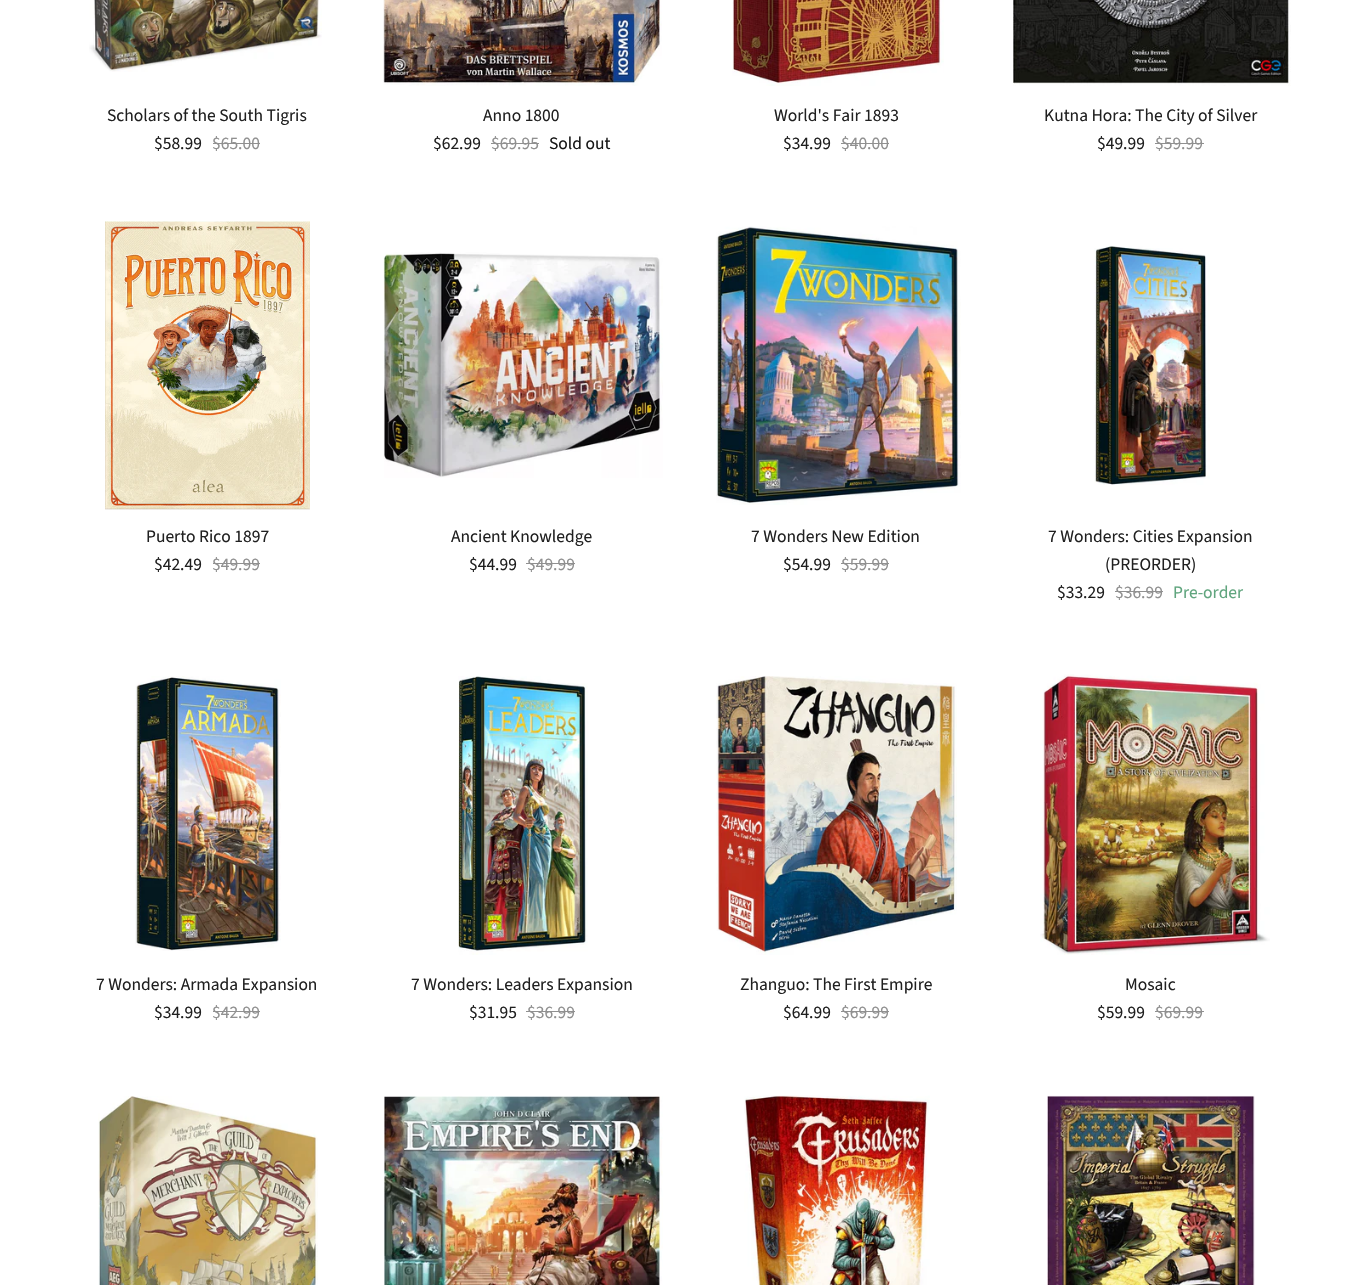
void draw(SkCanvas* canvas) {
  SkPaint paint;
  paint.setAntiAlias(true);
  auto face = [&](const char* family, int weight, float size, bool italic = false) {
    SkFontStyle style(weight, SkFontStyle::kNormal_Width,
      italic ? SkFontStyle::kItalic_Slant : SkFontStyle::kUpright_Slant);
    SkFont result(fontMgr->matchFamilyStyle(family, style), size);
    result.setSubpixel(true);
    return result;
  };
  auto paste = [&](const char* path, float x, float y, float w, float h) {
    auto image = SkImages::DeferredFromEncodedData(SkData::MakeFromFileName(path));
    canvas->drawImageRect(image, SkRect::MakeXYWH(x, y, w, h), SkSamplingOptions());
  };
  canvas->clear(0xffffffff);
  paste("img/1.png", 89, 0, 233, 72);
  paint.setColor(0xff909090);
  canvas->drawRect(SkRect::MakeXYWH(213, 143, 47, 1), paint);
  paste("img/2.png", 383, 0, 279, 86);
  canvas->drawRect(SkRect::MakeXYWH(491, 143, 48, 1), paint);
  paste("img/3.png", 732, 0, 212, 86);
  canvas->drawRect(SkRect::MakeXYWH(841, 143, 48, 1), paint);
  paste("img/4.png", 1013, 0, 278, 86);
  canvas->drawRect(SkRect::MakeXYWH(1155, 143, 49, 1), paint);
  paste("img/5.png", 105, 221, 205, 289);
  canvas->drawRect(SkRect::MakeXYWH(213, 563, 47, 1), paint);
  paste("img/6.png", 383, 252, 280, 226);
  canvas->drawRect(SkRect::MakeXYWH(526, 563, 49, 1), paint);
  paste("img/7.png", 716, 226, 245, 279);
  canvas->drawRect(SkRect::MakeXYWH(841, 563, 48, 1), paint);
  paste("img/8.png", 1094, 246, 116, 239);
  canvas->drawRect(SkRect::MakeXYWH(1115, 591, 48, 1), paint);
  paste("img/9.png", 135, 676, 146, 275);
  canvas->drawRect(SkRect::MakeXYWH(213, 1011, 47, 1), paint);
  paste("img/10.png", 458, 676, 130, 279);
  canvas->drawRect(SkRect::MakeXYWH(526, 1011, 49, 1), paint);
  paste("img/11.png", 716, 676, 241, 279);
  canvas->drawRect(SkRect::MakeXYWH(841, 1011, 48, 1), paint);
  paste("img/12.png", 1040, 674, 230, 281);
  canvas->drawRect(SkRect::MakeXYWH(1155, 1011, 49, 1), paint);
  paste("img/13.png", 98, 1096, 220, 189);
  paste("img/14.png", 384, 1096, 279, 189);
  paste("img/15.png", 744, 1095, 186, 190);
  paste("img/16.png", 1047, 1095, 208, 190);
  auto f0 = face("Source Sans Pro", 400, 17.5f);
  paint.setColor(0xff202020);
  canvas->drawString("Scholars of the South Tigris", 107, 121, f0, paint);
  canvas->drawString("$58.99", 154, 149, f0, paint);
  paint.setColor(0xff909090);
  canvas->drawString("$65.00", 212, 149, f0, paint);
  paint.setColor(0xff202020);
  canvas->drawString("Anno 1800", 483, 121, f0, paint);
  canvas->drawString("$62.99", 433, 149, f0, paint);
  paint.setColor(0xff909090);
  canvas->drawString("$69.95", 491, 149, f0, paint);
  paint.setColor(0xff171717);
  canvas->drawString("Sold out", 549, 149, f0, paint);
  paint.setColor(0xff202020);
  canvas->drawString("World's Fair 1893", 774, 121, f0, paint);
  canvas->drawString("$34.99", 783, 149, f0, paint);
  paint.setColor(0xff909090);
  canvas->drawString("$40.00", 841, 149, f0, paint);
  paint.setColor(0xff202020);
  canvas->drawString("Kutna Hora: The City of Silver", 1044, 121, f0, paint);
  canvas->drawString("$49.99", 1097, 149, f0, paint);
  paint.setColor(0xff909090);
  canvas->drawString("$59.99", 1155, 149, f0, paint);
  paint.setColor(0xff202020);
  canvas->drawString("Puerto Rico 1897", 146, 542, f0, paint);
  canvas->drawString("$42.49", 154, 570, f0, paint);
  paint.setColor(0xff909090);
  canvas->drawString("$49.99", 212, 570, f0, paint);
  paint.setColor(0xff202020);
  canvas->drawString("Ancient Knowledge", 451, 542, f0, paint);
  canvas->drawString("$44.99", 469, 570, f0, paint);
  paint.setColor(0xff909090);
  canvas->drawString("$49.99", 527, 570, f0, paint);
  paint.setColor(0xff202020);
  canvas->drawString("7 Wonders New Edition", 751, 542, f0, paint);
  canvas->drawString("$54.99", 783, 570, f0, paint);
  paint.setColor(0xff909090);
  canvas->drawString("$59.99", 841, 570, f0, paint);
  paint.setColor(0xff202020);
  {
    const struct { const char* s; float x, y; } items[] = {
      {"7 Wonders: Cities Expansion", 1048, 542},
      {"(PREORDER)", 1105, 570},
      {"$33.29", 1057, 598},
    };
    for (auto [s, x, y] : items) {
      canvas->drawString(s, x, y, f0, paint);
    }
  }
  paint.setColor(0xff909090);
  canvas->drawString("$36.99", 1115, 598, f0, paint);
  paint.setColor(0xff60a57e);
  canvas->drawString("Pre-order", 1173, 598, f0, paint);
  paint.setColor(0xff202020);
  canvas->drawString("7 Wonders: Armada Expansion", 96, 990, f0, paint);
  canvas->drawString("$34.99", 154, 1018, f0, paint);
  paint.setColor(0xff909090);
  canvas->drawString("$42.99", 212, 1018, f0, paint);
  paint.setColor(0xff202020);
  canvas->drawString("7 Wonders: Leaders Expansion", 411, 990, f0, paint);
  canvas->drawString("$31.95", 469, 1018, f0, paint);
  paint.setColor(0xff909090);
  canvas->drawString("$36.99", 527, 1018, f0, paint);
  paint.setColor(0xff202020);
  canvas->drawString("Zhanguo: The First Empire", 740, 990, f0, paint);
  canvas->drawString("$64.99", 783, 1018, f0, paint);
  paint.setColor(0xff909090);
  canvas->drawString("$69.99", 841, 1018, f0, paint);
  paint.setColor(0xff202020);
  canvas->drawString("Mosaic", 1125, 990, f0, paint);
  canvas->drawString("$59.99", 1097, 1018, f0, paint);
  paint.setColor(0xff909090);
  canvas->drawString("$69.99", 1155, 1018, f0, paint);
}
